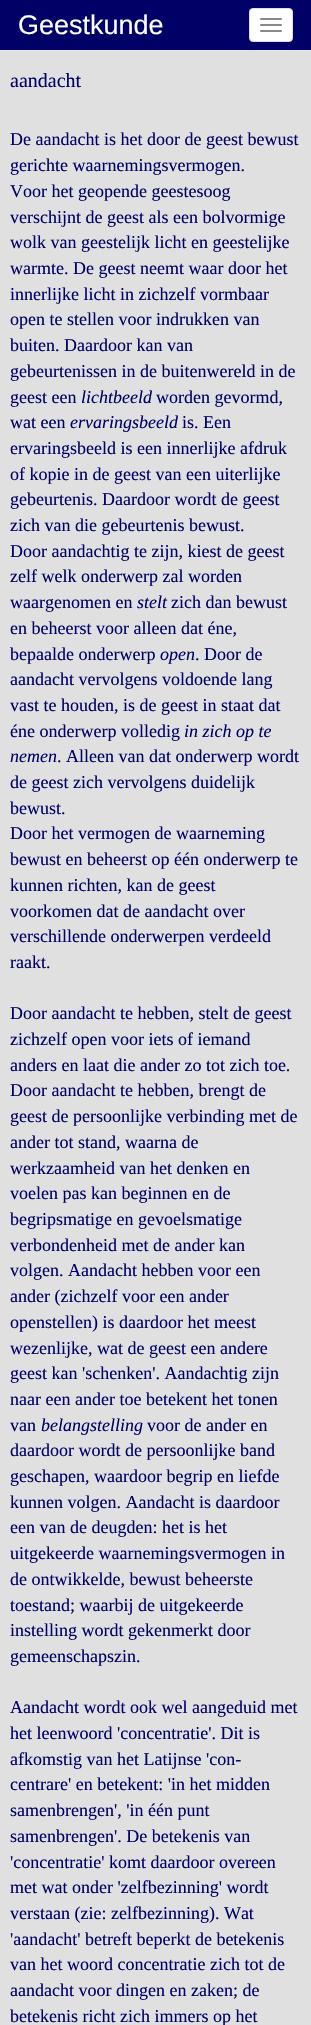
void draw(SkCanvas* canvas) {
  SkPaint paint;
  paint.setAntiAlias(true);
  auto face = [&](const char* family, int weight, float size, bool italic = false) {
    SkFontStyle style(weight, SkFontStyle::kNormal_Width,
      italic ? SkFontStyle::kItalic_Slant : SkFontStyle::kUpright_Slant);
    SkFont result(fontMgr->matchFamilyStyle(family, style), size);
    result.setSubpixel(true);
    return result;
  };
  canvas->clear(0xffe0e0e0);
  paint.setColor(0xff000066);
  canvas->drawRect(SkRect::MakeXYWH(0, 0, 311, 50), paint);
  paint.setColor(0xffe7e7e7);
  canvas->drawRect(SkRect::MakeXYWH(0, 50, 311, 1), paint);
  paint.setColor(0xffffffff);
  canvas->drawRoundRect(SkRect::MakeXYWH(249.5f, 8.5f, 43, 33), 3.5f, 3.5f, paint);
  paint.setStroke(true);
  paint.setStrokeWidth(1);
  paint.setColor(0xffdddddd);
  canvas->drawRoundRect(SkRect::MakeXYWH(249.5f, 8.5f, 43, 33), 3.5f, 3.5f, paint);
  paint.setStroke(false);
  paint.setColor(0xff888888);
  canvas->drawRoundRect(SkRect::MakeXYWH(260, 18, 22, 2), 1, 1, paint);
  canvas->drawRoundRect(SkRect::MakeXYWH(260, 24, 22, 2), 1, 1, paint);
  canvas->drawRoundRect(SkRect::MakeXYWH(260, 30, 22, 2), 1, 1, paint);
  auto f0 = face("Liberation Sans", 400, 27);
  paint.setColor(0xffffffff);
  canvas->drawString("Geestkunde", 18, 34, f0, paint);
  auto f1 = face("Liberation Serif", 400, 20);
  paint.setColor(0xff000066);
  canvas->drawString("aandacht", 10, 87, f1, paint);
  auto f2 = face("Liberation Serif", 400, 18);
  {
    const struct { const char* s; float x, y; } items[] = {
      {"De aandacht is het door de geest bewust", 10, 145},
      {"gerichte waarnemingsvermogen.", 10, 171},
      {"Voor het geopende geestesoog", 10, 197},
      {"verschijnt de geest als een bolvormige", 10, 223},
      {"wolk van geestelijk licht en geestelijke", 10, 248},
      {"warmte. De geest neemt waar door het", 10, 274},
      {"innerlijke licht in zichzelf vormbaar", 10, 300},
      {"open te stellen voor indrukken van", 10, 325},
      {"buiten. Daardoor kan van", 10, 351},
      {"gebeurtenissen in de buitenwereld in de", 10, 377},
      {"geest een", 10, 403},
    };
    for (auto [s, x, y] : items) {
      canvas->drawString(s, x, y, f2, paint);
    }
  }
  auto f3 = face("Liberation Serif", 400, 18, true);
  canvas->drawString("lichtbeeld", 81, 403, f3, paint);
  canvas->drawString("worden gevormd,", 156, 403, f2, paint);
  canvas->drawString("wat een", 10, 428, f2, paint);
  canvas->drawString("ervaringsbeeld", 70, 428, f3, paint);
  {
    const struct { const char* s; float x, y; } items[] = {
      {"is. Een", 182, 428},
      {"ervaringsbeeld is een innerlijke afdruk", 10, 454},
      {"of kopie in de geest van een uiterlijke", 10, 480},
      {"gebeurtenis. Daardoor wordt de geest", 10, 505},
      {"zich van die gebeurtenis bewust.", 10, 531},
      {"Door aandachtig te zijn, kiest de geest", 10, 557},
      {"zelf welk onderwerp zal worden", 10, 582},
      {"waargenomen en", 10, 608},
    };
    for (auto [s, x, y] : items) {
      canvas->drawString(s, x, y, f2, paint);
    }
  }
  canvas->drawString("stelt", 137, 608, f3, paint);
  {
    const struct { const char* s; float x, y; } items[] = {
      {"zich dan bewust", 171, 608},
      {"en beheerst voor alleen dat éne,", 10, 634},
      {"bepaalde onderwerp", 10, 660},
    };
    for (auto [s, x, y] : items) {
      canvas->drawString(s, x, y, f2, paint);
    }
  }
  canvas->drawString("open", 160, 660, f3, paint);
  {
    const struct { const char* s; float x, y; } items[] = {
      {". Door de", 195, 660},
      {"aandacht vervolgens voldoende lang", 10, 685},
      {"vast te houden, is de geest in staat dat", 10, 711},
      {"éne onderwerp volledig", 10, 737},
    };
    for (auto [s, x, y] : items) {
      canvas->drawString(s, x, y, f2, paint);
    }
  }
  canvas->drawString("in zich op te", 184, 737, f3, paint);
  canvas->drawString("nemen", 10, 762, f3, paint);
  {
    const struct { const char* s; float x, y; } items[] = {
      {". Alleen van dat onderwerp wordt", 57, 762},
      {"de geest zich vervolgens duidelijk", 10, 788},
      {"bewust.", 10, 814},
      {"Door het vermogen de waarneming", 10, 839},
      {"bewust en beheerst op één onderwerp te", 10, 865},
      {"kunnen richten, kan de geest", 10, 891},
      {"voorkomen dat de aandacht over", 10, 917},
      {"verschillende onderwerpen verdeeld", 10, 942},
      {"raakt.", 10, 968},
      {"Door aandacht te hebben, stelt de geest", 10, 1019},
      {"zichzelf open voor iets of iemand", 10, 1045},
      {"anders en laat die ander zo tot zich toe.", 10, 1071},
      {"Door aandacht te hebben, brengt de", 10, 1096},
      {"geest de persoonlijke verbinding met de", 10, 1122},
      {"ander tot stand, waarna de", 10, 1148},
      {"werkzaamheid van het denken en", 10, 1174},
      {"voelen pas kan beginnen en de", 10, 1199},
      {"begripsmatige en gevoelsmatige", 10, 1225},
      {"verbondenheid met de ander kan", 10, 1251},
      {"volgen. Aandacht hebben voor een", 10, 1276},
      {"ander (zichzelf voor een ander", 10, 1302},
      {"openstellen) is daardoor het meest", 10, 1328},
      {"wezenlijke, wat de geest een andere", 10, 1354},
      {"geest kan 'schenken'. Aandachtig zijn", 10, 1379},
      {"naar een ander toe betekent het tonen", 10, 1405},
      {"van", 10, 1431},
    };
    for (auto [s, x, y] : items) {
      canvas->drawString(s, x, y, f2, paint);
    }
  }
  canvas->drawString("belangstelling", 41, 1431, f3, paint);
  {
    const struct { const char* s; float x, y; } items[] = {
      {"voor de ander en", 147, 1431},
      {"daardoor wordt de persoonlijke band", 10, 1456},
      {"geschapen, waardoor begrip en liefde", 10, 1482},
      {"kunnen volgen. Aandacht is daardoor", 10, 1508},
      {"een van de deugden: het is het", 10, 1533},
      {"uitgekeerde waarnemingsvermogen in", 10, 1559},
      {"de ontwikkelde, bewust beheerste", 10, 1585},
      {"toestand; waarbij de uitgekeerde", 10, 1611},
      {"instelling wordt gekenmerkt door", 10, 1636},
      {"gemeenschapszin.", 10, 1662},
      {"Aandacht wordt ook wel aangeduid met", 10, 1713},
      {"het leenwoord 'concentratie'. Dit is", 10, 1739},
      {"afkomstig van het Latijnse 'con-", 10, 1765},
      {"centrare' en betekent: 'in het midden", 10, 1790},
      {"samenbrengen', 'in één punt", 10, 1816},
      {"samenbrengen'. De betekenis van", 10, 1842},
      {"'concentratie' komt daardoor overeen", 10, 1868},
      {"met wat onder 'zelfbezinning' wordt", 10, 1893},
      {"verstaan (zie: zelfbezinning). Wat", 10, 1919},
      {"'aandacht' betreft beperkt de betekenis", 10, 1945},
      {"van het woord concentratie zich tot de", 10, 1970},
      {"aandacht voor dingen en zaken; de", 10, 1996},
      {"betekenis richt zich immers op het", 10, 2022},
    };
    for (auto [s, x, y] : items) {
      canvas->drawString(s, x, y, f2, paint);
    }
  }
}
